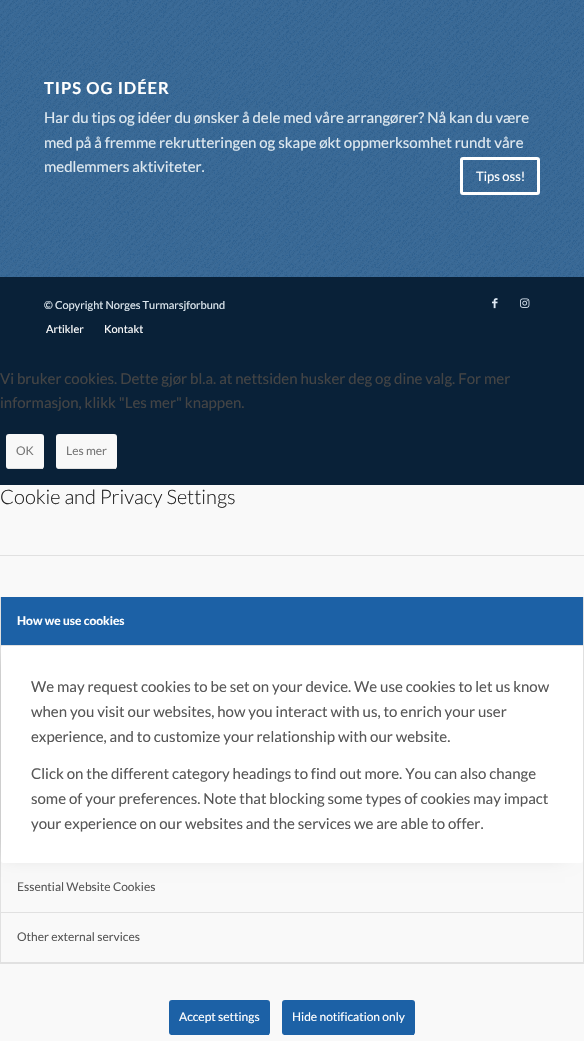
void draw(SkCanvas* canvas) {
  SkPaint paint;
  paint.setAntiAlias(true);
  auto face = [&](const char* family, int weight, float size, bool italic = false) {
    SkFontStyle style(weight, SkFontStyle::kNormal_Width,
      italic ? SkFontStyle::kItalic_Slant : SkFontStyle::kUpright_Slant);
    SkFont result(fontMgr->matchFamilyStyle(family, style), size);
    result.setSubpixel(true);
    return result;
  };
  auto writeSpaced = [&](const char* s, float x, float y, const SkFont& font, const SkPaint& ink, float letter, float word) {
    std::vector<SkGlyphID> glyphs(font.countText(s, strlen(s), SkTextEncoding::kUTF8));
    std::vector<float> xs(glyphs.size());
    font.textToGlyphs(s, strlen(s), SkTextEncoding::kUTF8, glyphs);
    font.getXPos(glyphs, xs, x);
    float extra = 0;
    for (size_t i = 0; i < glyphs.size(); i++) {
      xs[i] += extra;
      extra += letter + word * (glyphs[i] == font.unicharToGlyph(' '));
    }
    canvas->drawTextBlob(SkTextBlob::MakeFromPosHGlyphs(glyphs, xs, y, font), 0, 0, ink);
  };
  auto paste = [&](const char* path, float x, float y, float w, float h) {
    auto image = SkImages::DeferredFromEncodedData(SkData::MakeFromFileName(path));
    canvas->drawImageRect(image, SkRect::MakeXYWH(x, y, w, h), SkSamplingOptions());
  };
  canvas->clear(0xff092138);
  paint.setColor(0xff316494);
  canvas->drawRect(SkRect::MakeXYWH(0, 0, 584, 277), paint);
  paste("img/1.png", 0, 0, 584, 277);
  paint.setStroke(true);
  paint.setStrokeWidth(3);
  paint.setColor(0xffffffff);
  canvas->drawRoundRect(SkRect::MakeXYWH(461.5f, 158.5f, 77, 35), 1.5f, 1.5f, paint);
  paste("img/2.png", 492, 298, 6, 11);
  paste("img/3.png", 520, 298, 10, 10);
  paint.setStroke(false);
  paint.setColor(0xfff8f8f8);
  canvas->drawRoundRect(SkRect::MakeXYWH(6, 434, 38, 35), 3, 3, paint);
  paint.setColor(0xffe1e1e1);
  canvas->drawRect(SkRect::MakeXYWH(8, 468, 35, 1), paint);
  paint.setColor(0xfff8f8f8);
  canvas->drawRoundRect(SkRect::MakeXYWH(56, 434, 61, 35), 3, 3, paint);
  {
    const struct { float x, y, w, h; SkColor color; } items[] = {
      {58, 468, 58, 1, 0xffe1e1e1},
      {0, 485, 584, 556, 0xfff9f9f9},
      {0, 555, 584, 1, 0xffe1e1e1},
      {583, 597, 1, 367, 0xffe1e1e1},
      {0, 963, 584, 1, 0xffe1e1e1},
      {0, 597, 1, 367, 0xffe1e1e1},
    };
    for (auto [x, y, w, h, color] : items) {
      paint.setColor(color);
      canvas->drawRect(SkRect::MakeXYWH(x, y, w, h), paint);
    }
  }
  paint.setColor(0x33000000);
  paint.setMaskFilter(SkMaskFilter::MakeBlur(kNormal_SkBlurStyle, 10));
  canvas->drawRect(SkRect::MakeXYWH(3, 656, 562, 197), paint);
  paint.setMaskFilter(nullptr);
  paint.setColor(0xff1c61a6);
  canvas->drawRect(SkRect::MakeXYWH(1, 597, 582, 48), paint);
  paint.setColor(0xffe1e1e1);
  canvas->drawRect(SkRect::MakeXYWH(1, 645, 582, 1), paint);
  paint.setColor(0xffffffff);
  canvas->drawRoundRect(SkRect::MakeXYWH(1, 646, 582, 217), 2, 2, paint);
  paint.setColor(0xffe1e1e1);
  canvas->drawRect(SkRect::MakeXYWH(1, 912, 582, 1), paint);
  canvas->drawRect(SkRect::MakeXYWH(1, 962, 582, 1), paint);
  paint.setColor(0xff1c61a6);
  canvas->drawRoundRect(SkRect::MakeXYWH(169, 1000, 101, 35), 3, 3, paint);
  canvas->drawRect(SkRect::MakeXYWH(171, 1034, 98, 1), paint);
  canvas->drawRoundRect(SkRect::MakeXYWH(282, 1000, 133, 35), 3, 3, paint);
  canvas->drawRect(SkRect::MakeXYWH(284, 1034, 130, 1), paint);
  auto f0 = face("Lato", 700, 16.5f);
  paint.setColor(0xffffffff);
  writeSpaced("TIPS OG IDÉER", 44, 94, f0, paint, 1, 0);
  auto f1 = face("Lato", 400, 15);
  paint.setColor(0xffdfe9f0);
  {
    const struct { const char* s; float x, y; } items[] = {
      {"Har du tips og idéer du ønsker å dele med våre arrangører? Nå kan du være", 44, 123},
      {"med på å fremme rekrutteringen og skape økt oppmerksomhet rundt våre", 44, 148},
      {"medlemmers aktiviteter.", 44, 172},
    };
    for (auto [s, x, y] : items) {
      canvas->drawString(s, x, y, f1, paint);
    }
  }
  auto f2 = face("Lato", 400, 13);
  paint.setColor(0xffffffff);
  canvas->drawString("Tips oss!", 476, 181, f2, paint);
  auto f3 = face("Lato", 400, 11);
  paint.setColor(0xffdfe9f0);
  canvas->drawString("© Copyright Norges Turmarsjforbund", 44, 309, f3, paint);
  paint.setColor(0xffffffff);
  canvas->drawString("Artikler", 46, 333, f3, paint);
  canvas->drawString("Kontakt", 104, 333, f3, paint);
  paint.setColor(0xff444444);
  canvas->drawString("Vi bruker cookies. Dette gjør bl.a. at nettsiden husker deg og dine valg. For mer", 0, 384, f1, paint);
  canvas->drawString("informasjon, klikk \"Les mer\" knappen.", 0, 408, f1, paint);
  auto f4 = face("Lato", 400, 12);
  paint.setColor(0xff777777);
  canvas->drawString("OK", 16, 455, f4, paint);
  canvas->drawString("Les mer", 66, 455, f4, paint);
  auto f5 = face("Lato", 300, 20);
  paint.setColor(0xff222222);
  canvas->drawString("Cookie and Privacy Settings", 0, 504, f5, paint);
  auto f6 = face("Lato", 700, 12);
  paint.setColor(0xffffffff);
  canvas->drawString("How we use cookies", 17, 625, f6, paint);
  paint.setColor(0xff575757);
  {
    const struct { const char* s; float x, y; } items[] = {
      {"We may request cookies to be set on your device. We use cookies to let us know", 31, 692},
      {"when you visit our websites, how you interact with us, to enrich your user", 31, 717},
      {"experience, and to customize your relationship with our website.", 31, 742},
      {"Click on the different category headings to find out more. You can also change", 31, 779},
      {"some of your preferences. Note that blocking some types of cookies may impact", 31, 804},
      {"your experience on our websites and the services we are able to offer.", 31, 829},
    };
    for (auto [s, x, y] : items) {
      canvas->drawString(s, x, y, f1, paint);
    }
  }
  canvas->drawString("Essential Website Cookies", 17, 891, f4, paint);
  canvas->drawString("Other external services", 17, 941, f4, paint);
  paint.setColor(0xffffffff);
  canvas->drawString("Accept settings", 179, 1021, f4, paint);
  canvas->drawString("Hide notification only", 292, 1021, f4, paint);
}
